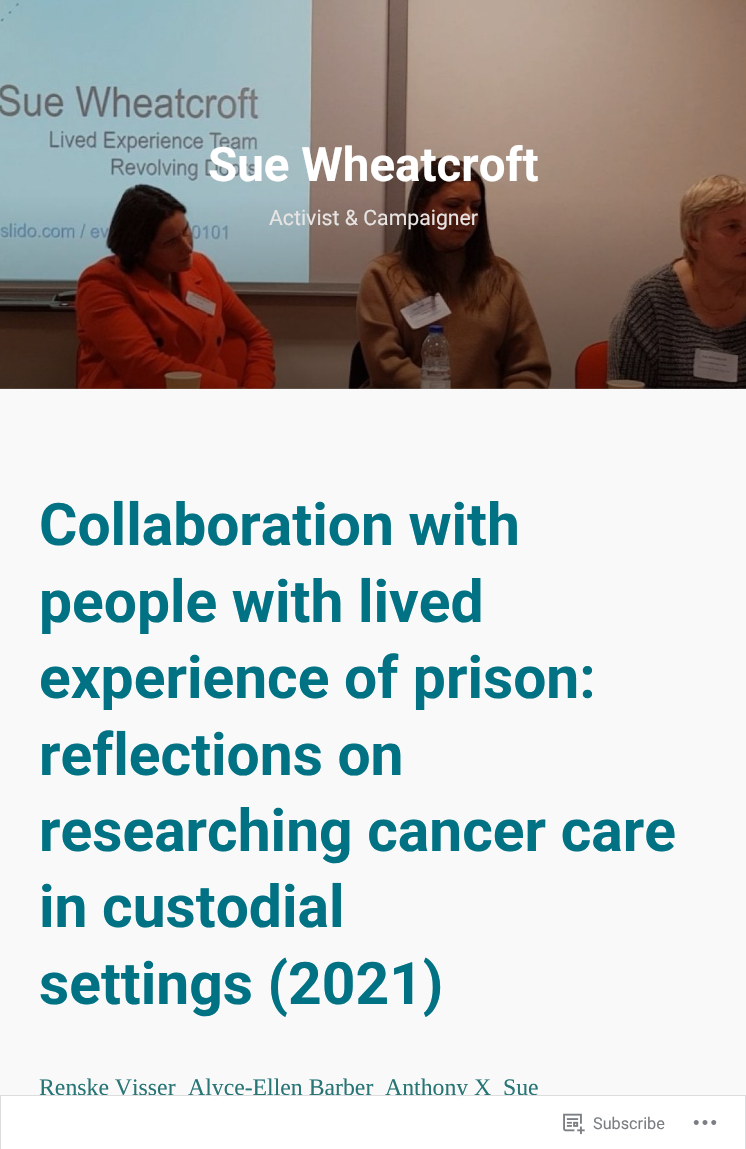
void draw(SkCanvas* canvas) {
  SkPaint paint;
  paint.setAntiAlias(true);
  auto face = [&](const char* family, int weight, float size, bool italic = false) {
    SkFontStyle style(weight, SkFontStyle::kNormal_Width,
      italic ? SkFontStyle::kItalic_Slant : SkFontStyle::kUpright_Slant);
    SkFont result(fontMgr->matchFamilyStyle(family, style), size);
    result.setSubpixel(true);
    return result;
  };
  auto paste = [&](const char* path, float x, float y, float w, float h) {
    auto image = SkImages::DeferredFromEncodedData(SkData::MakeFromFileName(path));
    canvas->drawImageRect(image, SkRect::MakeXYWH(x, y, w, h), SkSamplingOptions());
  };
  canvas->clear(0xfff9f9f9);
  paste("img/1.png", 0, 0, 746, 389);
  {
    const SkColor colors[] = {0x26000000, 0x73000000};
    const float stops[] = {0.5f, 1};
    const SkPoint ends[] = {{373, 0}, {373, 389}};
    paint.setShader(SkGradientShader::MakeLinear(ends, colors, stops, 2, SkTileMode::kClamp));
    paint.setAlpha(255);
  }
  canvas->drawRect(SkRect::MakeXYWH(0, 0, 746, 389), paint);
  auto f0 = face("Roboto", 700, 47.5f);
  paint.setShader(nullptr);
  paint.setColor(0xffffffff);
  canvas->drawString("Sue Wheatcroft", 208, 181, f0, paint);
  auto f1 = face("Roboto", 400, 21.25f);
  paint.setColor(0xffe7e4e3);
  canvas->drawString("Activist & Campaigner", 269, 225, f1, paint);
  auto f2 = face("Roboto", 700, 58.75f);
  paint.setColor(0xff007284);
  {
    const struct { const char* s; float x, y; } items[] = {
      {"Collaboration with", 39, 545},
      {"people with lived", 39, 622},
      {"experience of prison:", 39, 698},
      {"reflections on", 39, 775},
      {"researching cancer care", 39, 851},
      {"in custodial", 39, 927},
      {"settings (2021)", 39, 1004},
    };
    for (auto [s, x, y] : items) {
      canvas->drawString(s, x, y, f2, paint);
    }
  }
  auto f3 = face("Liberation Serif", 400, 23.75f);
  paint.setColor(0xff287575);
  {
    const struct { const char* s; float x, y; } items[] = {
      {"Renske Visser", 39, 1095},
      {"Alyce-Ellen Barber", 188, 1095},
      {"Anthony X", 385, 1095},
      {"Sue", 503, 1095},
    };
    for (auto [s, x, y] : items) {
      canvas->drawString(s, x, y, f3, paint);
    }
  }
  paint.setColor(0xfaffffff);
  canvas->drawRect(SkRect::MakeXYWH(0, 1095, 746, 54), paint);
  paint.setStroke(true);
  paint.setStrokeWidth(1);
  paint.setColor(0xfadcdcde);
  canvas->drawRect(SkRect::MakeXYWH(0.5f, 1095.5f, 745, 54), paint);
  paste("img/2.png", 563, 1113, 22, 22);
  auto f4 = face("Roboto", 400, 16.25f);
  paint.setStroke(false);
  paint.setColor(0xff7b7f84);
  canvas->drawString("Subscribe", 593, 1129, f4, paint);
  paste("img/3.png", 693, 1120, 24, 5);
}
